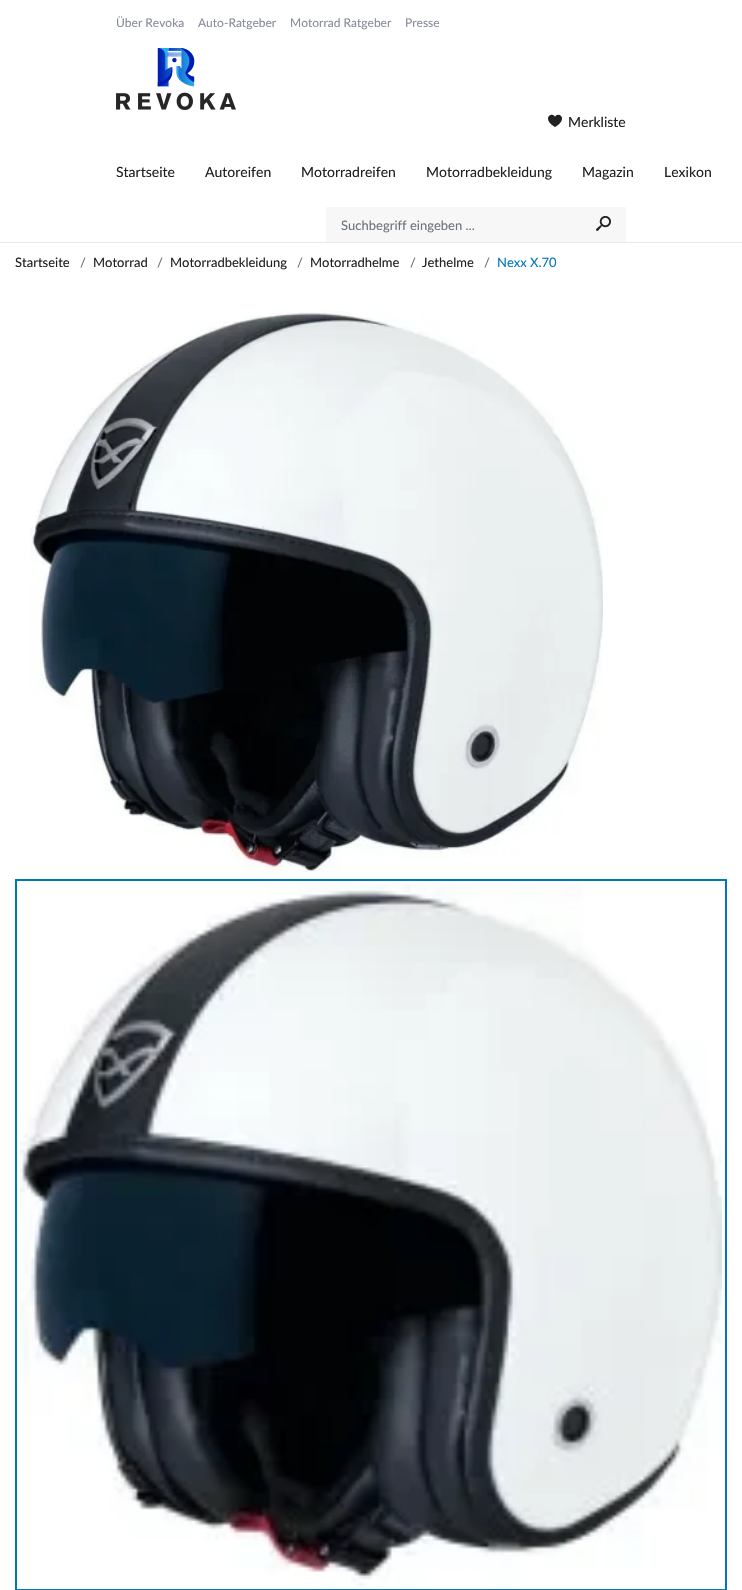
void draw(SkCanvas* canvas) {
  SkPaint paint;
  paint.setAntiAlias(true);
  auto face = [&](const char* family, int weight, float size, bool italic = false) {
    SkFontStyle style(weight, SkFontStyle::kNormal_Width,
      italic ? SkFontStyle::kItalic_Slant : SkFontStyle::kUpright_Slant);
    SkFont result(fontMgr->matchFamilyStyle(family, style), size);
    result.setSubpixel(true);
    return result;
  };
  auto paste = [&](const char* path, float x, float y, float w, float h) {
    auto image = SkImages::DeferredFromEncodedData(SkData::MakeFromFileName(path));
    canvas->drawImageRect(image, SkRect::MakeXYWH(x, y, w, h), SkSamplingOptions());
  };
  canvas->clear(0xffffffff);
  paint.setColor(0xffeaeaed);
  canvas->drawRect(SkRect::MakeXYWH(0, 242, 742, 1), paint);
  paste("img/1.png", 116, 48, 120, 62);
  paste("img/2.png", 548, 114, 14, 13);
  paint.setColor(0xfff7f7f7);
  canvas->drawRect(SkRect::MakeXYWH(326, 207, 300, 35), paint);
  paste("img/3.png", 596, 215, 15, 16);
  paste("img/4.png", 30, 311, 573, 561);
  paint.setStroke(true);
  paint.setStrokeWidth(2);
  paint.setColor(0xff0077b6);
  canvas->drawRect(SkRect::MakeXYWH(16, 880, 710, 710), paint);
  paste("img/5.png", 20, 884, 702, 702);
  auto f0 = face("Lato", 400, 12);
  paint.setStroke(false);
  paint.setColor(0xff878c9b);
  {
    const struct { const char* s; float x, y; } items[] = {
      {"Über Revoka", 116, 27},
      {"Auto-Ratgeber", 198, 27},
      {"Motorrad Ratgeber", 290, 27},
      {"Presse", 405, 27},
    };
    for (auto [s, x, y] : items) {
      canvas->drawString(s, x, y, f0, paint);
    }
  }
  auto f1 = face("Lato", 400, 14);
  paint.setColor(0xff212121);
  {
    const struct { const char* s; float x, y; } items[] = {
      {"Merkliste", 568, 127},
      {"Startseite", 116, 177},
      {"Autoreifen", 205, 177},
      {"Motorradreifen", 301, 177},
      {"Motorradbekleidung", 426, 177},
      {"Magazin", 582, 177},
      {"Lexikon", 664, 177},
    };
    for (auto [s, x, y] : items) {
      canvas->drawString(s, x, y, f1, paint);
    }
  }
  auto f2 = face("Lato", 400, 13);
  paint.setColor(0xff6c757d);
  canvas->drawString("Suchbegriff eingeben ...", 341, 230, f2, paint);
  paint.setColor(0xff212121);
  canvas->drawString("Startseite", 15, 267, f2, paint);
  paint.setColor(0xff6c757d);
  canvas->drawString("/", 80, 267, f2, paint);
  paint.setColor(0xff212121);
  canvas->drawString("Motorrad", 93, 267, f2, paint);
  paint.setColor(0xff6c757d);
  canvas->drawString("/", 157, 267, f2, paint);
  paint.setColor(0xff212121);
  canvas->drawString("Motorradbekleidung", 170, 267, f2, paint);
  paint.setColor(0xff6c757d);
  canvas->drawString("/", 297, 267, f2, paint);
  paint.setColor(0xff212121);
  canvas->drawString("Motorradhelme", 310, 267, f2, paint);
  paint.setColor(0xff6c757d);
  canvas->drawString("/", 410, 267, f2, paint);
  paint.setColor(0xff212121);
  canvas->drawString("Jethelme", 422, 267, f2, paint);
  paint.setColor(0xff6c757d);
  canvas->drawString("/", 484, 267, f2, paint);
  paint.setColor(0xff0077b6);
  canvas->drawString("Nexx X.70", 497, 267, f2, paint);
}
